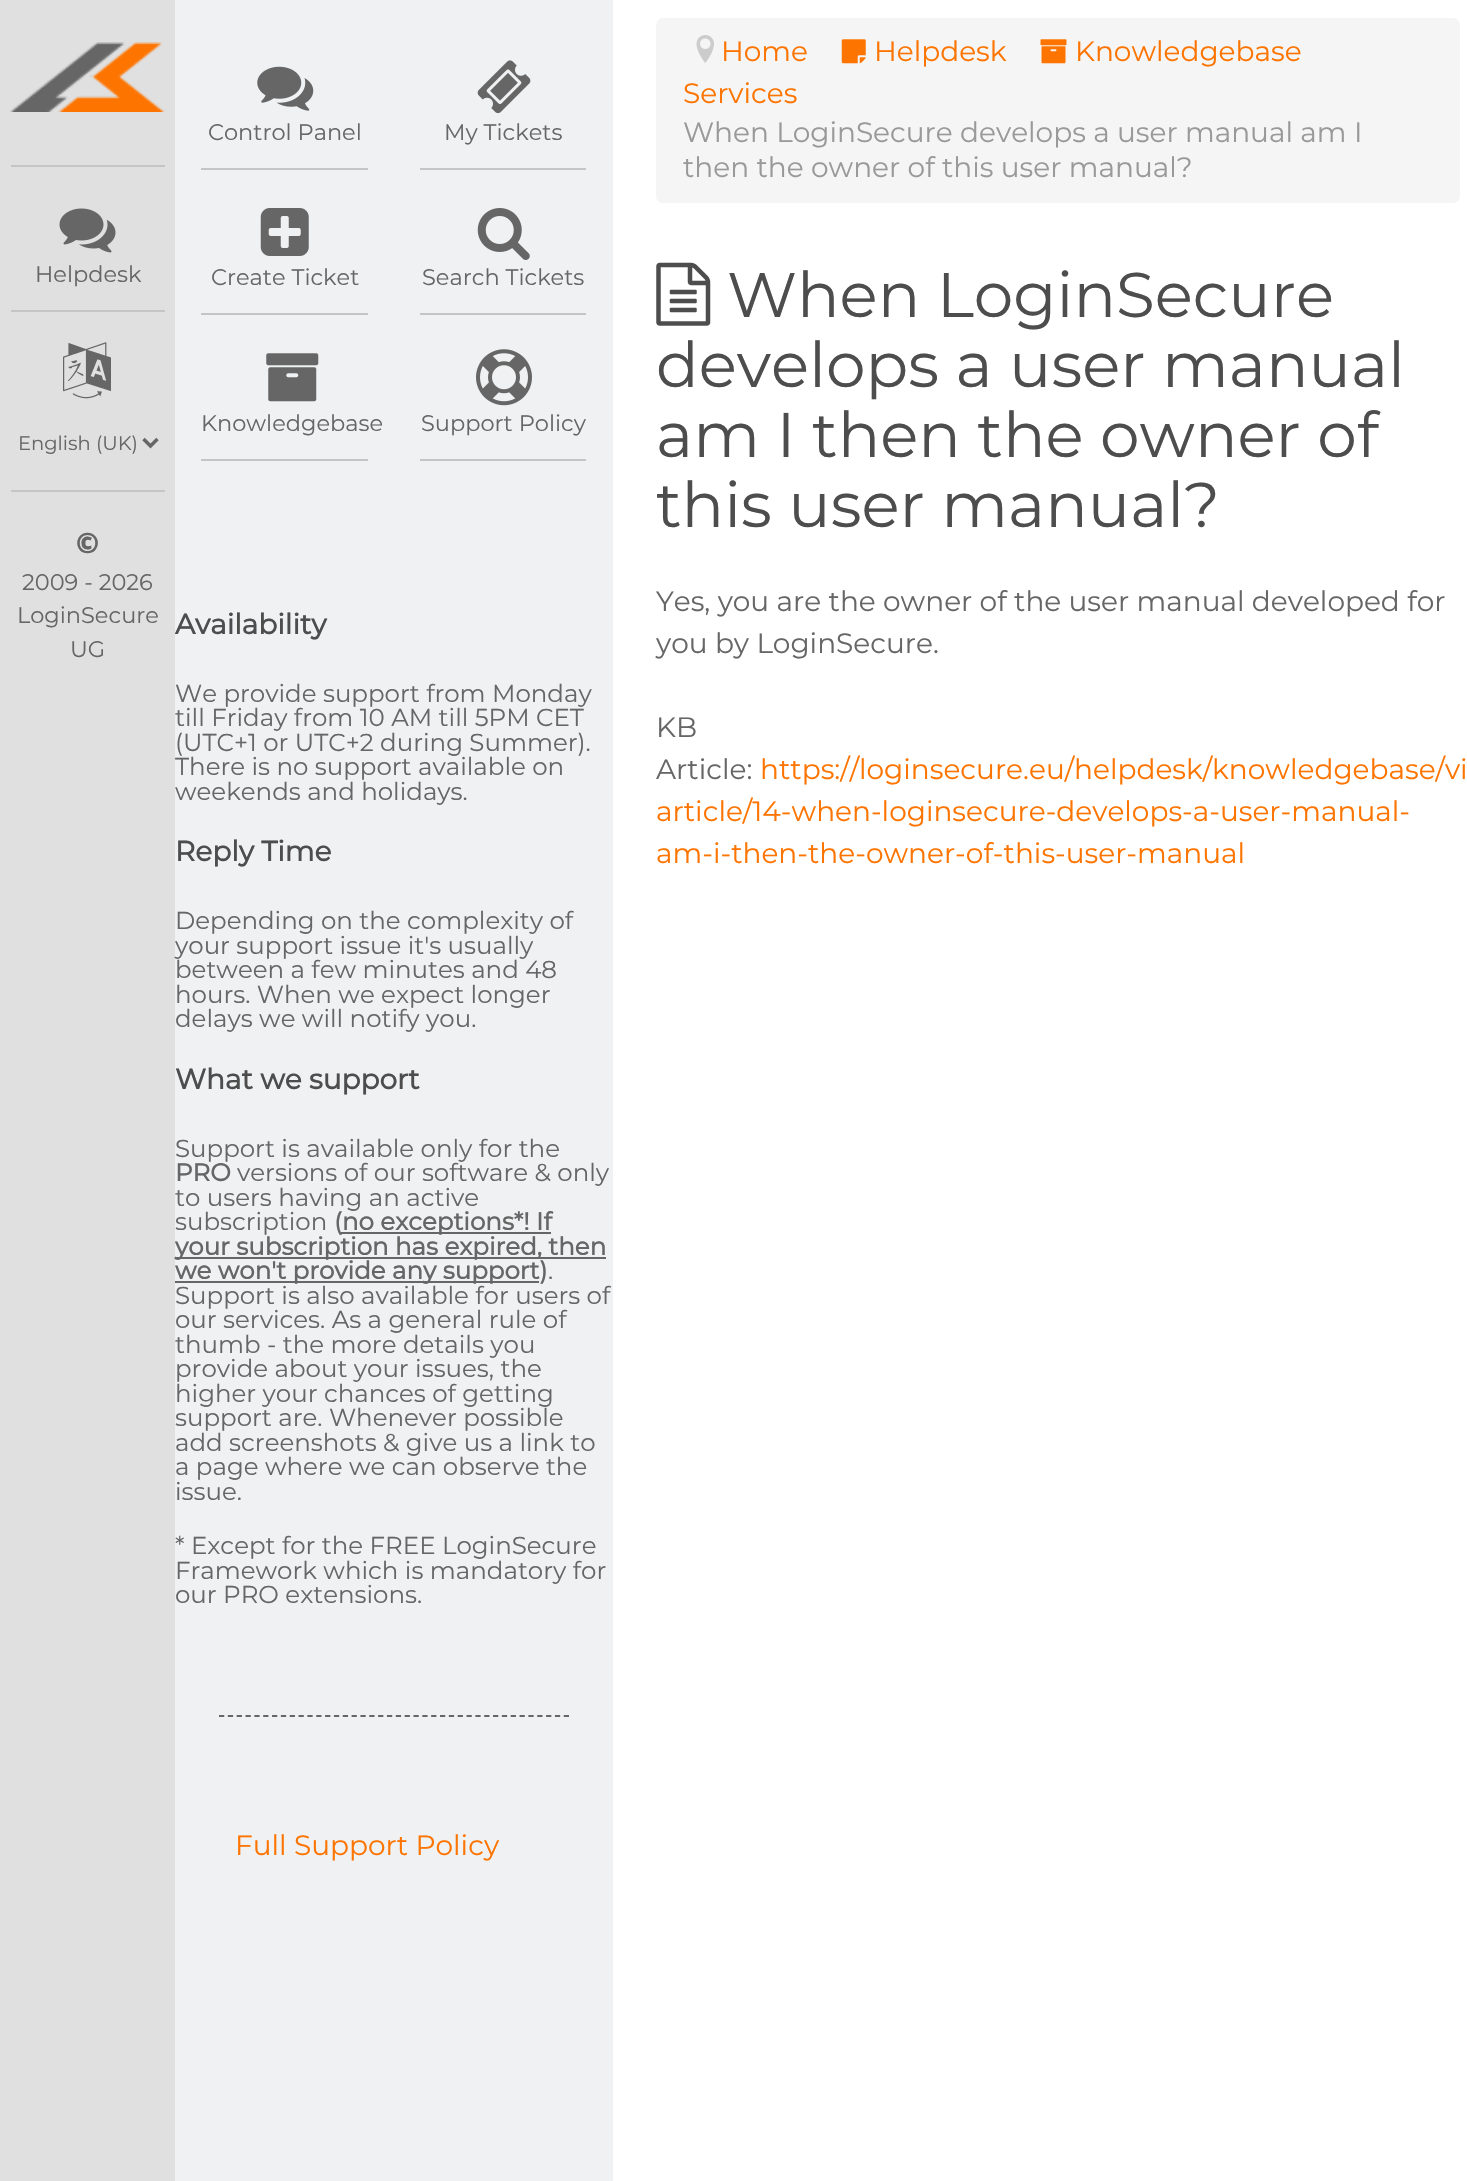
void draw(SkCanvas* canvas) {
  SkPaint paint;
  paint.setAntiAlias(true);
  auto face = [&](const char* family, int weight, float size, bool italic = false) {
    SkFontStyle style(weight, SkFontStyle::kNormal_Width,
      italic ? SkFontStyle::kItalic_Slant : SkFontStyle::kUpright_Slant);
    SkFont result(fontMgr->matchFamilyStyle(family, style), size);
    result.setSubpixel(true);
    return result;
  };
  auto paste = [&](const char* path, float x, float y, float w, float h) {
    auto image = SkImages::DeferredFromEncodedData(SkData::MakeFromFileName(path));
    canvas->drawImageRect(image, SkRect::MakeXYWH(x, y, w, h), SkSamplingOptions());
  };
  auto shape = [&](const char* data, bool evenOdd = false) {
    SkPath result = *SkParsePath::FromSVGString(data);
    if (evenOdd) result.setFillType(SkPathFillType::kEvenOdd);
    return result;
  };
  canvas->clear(0xffffffff);
  paint.setColor(0xffe0e0e0);
  canvas->drawRect(SkRect::MakeXYWH(0, 0, 175, 2181), paint);
  paint.setColor(0xffc5c5c5);
  canvas->drawRect(SkRect::MakeXYWH(11, 165, 154, 2), paint);
  paste("img/1.png", 10, 42, 155, 70);
  canvas->drawRect(SkRect::MakeXYWH(11, 310, 154, 2), paint);
  paste("img/2.png", 59, 208, 57, 45);
  canvas->drawRect(SkRect::MakeXYWH(11, 490, 154, 2), paint);
  paste("img/3.png", 63, 342, 48, 57);
  paint.setStroke(true);
  paint.setStrokeWidth(3.5f);
  paint.setColor(0xff666666);
  canvas->drawPath(shape("M143.5 439L150.5 446L157.5 439"), paint);
  paint.setStroke(false);
  paint.setColor(0xfff0f1f3);
  canvas->drawRect(SkRect::MakeXYWH(175, 0, 438, 2181), paint);
  paint.setColor(0xffc5c5c5);
  canvas->drawRect(SkRect::MakeXYWH(201, 168, 167, 2), paint);
  paste("img/4.png", 257, 66, 57, 45);
  canvas->drawRect(SkRect::MakeXYWH(420, 168, 166, 2), paint);
  paste("img/5.png", 477, 60, 54, 54);
  canvas->drawRect(SkRect::MakeXYWH(201, 313, 167, 2), paint);
  paste("img/6.png", 260, 208, 49, 48);
  canvas->drawRect(SkRect::MakeXYWH(420, 313, 166, 2), paint);
  paste("img/7.png", 477, 208, 53, 52);
  canvas->drawRect(SkRect::MakeXYWH(201, 459, 167, 2), paint);
  paste("img/8.png", 266, 353, 53, 49);
  canvas->drawRect(SkRect::MakeXYWH(420, 459, 166, 2), paint);
  paste("img/9.png", 476, 349, 56, 57);
  {
    const struct { float x, y, w, h; SkColor color; } items[] = {
      {341, 1232, 210, 2, 0xff666666},
      {175, 1257, 431, 2, 0xff666666},
      {175, 1281, 364, 2, 0xff666666},
    };
    for (auto [x, y, w, h, color] : items) {
      paint.setColor(color);
      canvas->drawRect(SkRect::MakeXYWH(x, y, w, h), paint);
    }
  }
  paint.setStroke(true);
  paint.setStrokeWidth(1.8f);
  paint.setPathEffect(SkDashPathEffect::Make({{5.25f, 3.59f}}, 0));
  canvas->drawPath(shape("M219 1716H569"), paint);
  paint.setPathEffect(nullptr);
  paint.setStroke(false);
  paint.setColor(0xfff5f5f5);
  canvas->drawRoundRect(SkRect::MakeXYWH(656, 18, 804, 185), 7, 7, paint);
  paste("img/10.png", 696, 35, 18, 28);
  paste("img/11.png", 841, 39, 25, 25);
  paste("img/12.png", 1040, 39, 27, 25);
  paste("img/13.png", 656, 262, 55, 64);
  auto f0 = face("Montserrat", 100, 22.5f);
  paint.setColor(0xff666666);
  canvas->drawString("Helpdesk", 35, 282, f0, paint);
  auto f1 = face("Montserrat", 100, 19.5f);
  canvas->drawString("English (UK)", 18, 450, f1, paint);
  auto f2 = face("Noto Sans", 900, 28);
  canvas->drawString("©", 76, 553, f2, paint);
  {
    const struct { const char* s; float x, y; } items[] = {
      {"2009 - 2026", 22, 590},
      {"LoginSecure", 17, 623},
      {"UG", 70, 657},
      {"Control Panel", 208, 140},
      {"My Tickets", 444, 140},
      {"Create Ticket", 211, 285},
      {"Search Tickets", 422, 285},
      {"Knowledgebase", 201, 431},
      {"Support Policy", 421, 431},
    };
    for (auto [s, x, y] : items) {
      canvas->drawString(s, x, y, f0, paint);
    }
  }
  auto f3 = face("Montserrat", 700, 28);
  paint.setColor(0xff4d4d4d);
  canvas->drawString("Availability", 175, 634, f3, paint);
  auto f4 = face("Montserrat", 100, 24.5f);
  paint.setColor(0xff666666);
  {
    const struct { const char* s; float x, y; } items[] = {
      {"We provide support from Monday", 175, 702},
      {"till Friday from 10 AM till 5PM CET", 175, 726},
      {"(UTC+1 or UTC+2 during Summer).", 175, 751},
      {"There is no support available on", 175, 775},
      {"weekends and holidays.", 175, 800},
    };
    for (auto [s, x, y] : items) {
      canvas->drawString(s, x, y, f4, paint);
    }
  }
  paint.setColor(0xff4d4d4d);
  canvas->drawString("Reply Time", 175, 861, f3, paint);
  paint.setColor(0xff666666);
  {
    const struct { const char* s; float x, y; } items[] = {
      {"Depending on the complexity of", 175, 929},
      {"your support issue it's usually", 175, 954},
      {"between a few minutes and 48", 175, 978},
      {"hours. When we expect longer", 175, 1003},
      {"delays we will notify you.", 175, 1027},
    };
    for (auto [s, x, y] : items) {
      canvas->drawString(s, x, y, f4, paint);
    }
  }
  paint.setColor(0xff4d4d4d);
  canvas->drawString("What we support", 175, 1089, f3, paint);
  paint.setColor(0xff666666);
  canvas->drawString("Support is available only for the", 175, 1157, f4, paint);
  auto f5 = face("Montserrat", 700, 24.5f);
  canvas->drawString("PRO", 175, 1181, f5, paint);
  {
    const struct { const char* s; float x, y; } items[] = {
      {"versions of our software & only", 237, 1181},
      {"to users having an active", 175, 1206},
      {"subscription", 175, 1230},
    };
    for (auto [s, x, y] : items) {
      canvas->drawString(s, x, y, f4, paint);
    }
  }
  {
    const struct { const char* s; float x, y; } items[] = {
      {"(", 334, 1230},
      {"no exceptions*! If", 342, 1230},
      {"your subscription has expired, then", 175, 1255},
      {"we won't provide any support)", 175, 1279},
    };
    for (auto [s, x, y] : items) {
      canvas->drawString(s, x, y, f5, paint);
    }
  }
  {
    const struct { const char* s; float x, y; } items[] = {
      {".", 548, 1279},
      {"Support is also available for users of", 175, 1304},
      {"our services. As a general rule of", 175, 1328},
      {"thumb - the more details you", 175, 1353},
      {"provide about your issues, the", 175, 1377},
      {"higher your chances of getting", 175, 1402},
      {"support are. Whenever possible", 175, 1426},
      {"add screenshots & give us a link to", 175, 1451},
      {"a page where we can observe the", 175, 1475},
      {"issue.", 175, 1500},
      {"* Except for the FREE LoginSecure", 175, 1554},
      {"Framework which is mandatory for", 175, 1579},
      {"our PRO extensions.", 175, 1603},
    };
    for (auto [s, x, y] : items) {
      canvas->drawString(s, x, y, f4, paint);
    }
  }
  auto f6 = face("Montserrat", 100, 28);
  paint.setColor(0xfffd7400);
  {
    const struct { const char* s; float x, y; } items[] = {
      {"Full Support Policy", 235, 1855},
      {"Home", 721, 61},
      {"Helpdesk", 874, 61},
      {"Knowledgebase", 1075, 61},
      {"Services", 683, 103},
    };
    for (auto [s, x, y] : items) {
      canvas->drawString(s, x, y, f6, paint);
    }
  }
  paint.setColor(0xff999999);
  canvas->drawString("When LoginSecure develops a user manual am I", 683, 142, f6, paint);
  canvas->drawString("then the owner of this user manual?", 683, 177, f6, paint);
  auto f7 = face("Montserrat", 100, 63);
  paint.setColor(0xff4d4d4d);
  {
    const struct { const char* s; float x, y; } items[] = {
      {"When LoginSecure", 727, 317},
      {"develops a user manual", 656, 387},
      {"am I then the owner of", 656, 457},
      {"this user manual?", 656, 527},
    };
    for (auto [s, x, y] : items) {
      canvas->drawString(s, x, y, f7, paint);
    }
  }
  paint.setColor(0xff666666);
  {
    const struct { const char* s; float x, y; } items[] = {
      {"Yes, you are the owner of the user manual developed for", 656, 611},
      {"you by LoginSecure.", 656, 653},
      {"KB", 656, 737},
      {"Article:", 656, 779},
    };
    for (auto [s, x, y] : items) {
      canvas->drawString(s, x, y, f6, paint);
    }
  }
  paint.setColor(0xfffd7400);
  {
    const struct { const char* s; float x, y; } items[] = {
      {"https://loginsecure.eu/helpdesk/knowledgebase/vi", 760, 779},
      {"article/14-when-loginsecure-develops-a-user-manual-", 656, 821},
      {"am-i-then-the-owner-of-this-user-manual", 656, 863},
    };
    for (auto [s, x, y] : items) {
      canvas->drawString(s, x, y, f6, paint);
    }
  }
}
